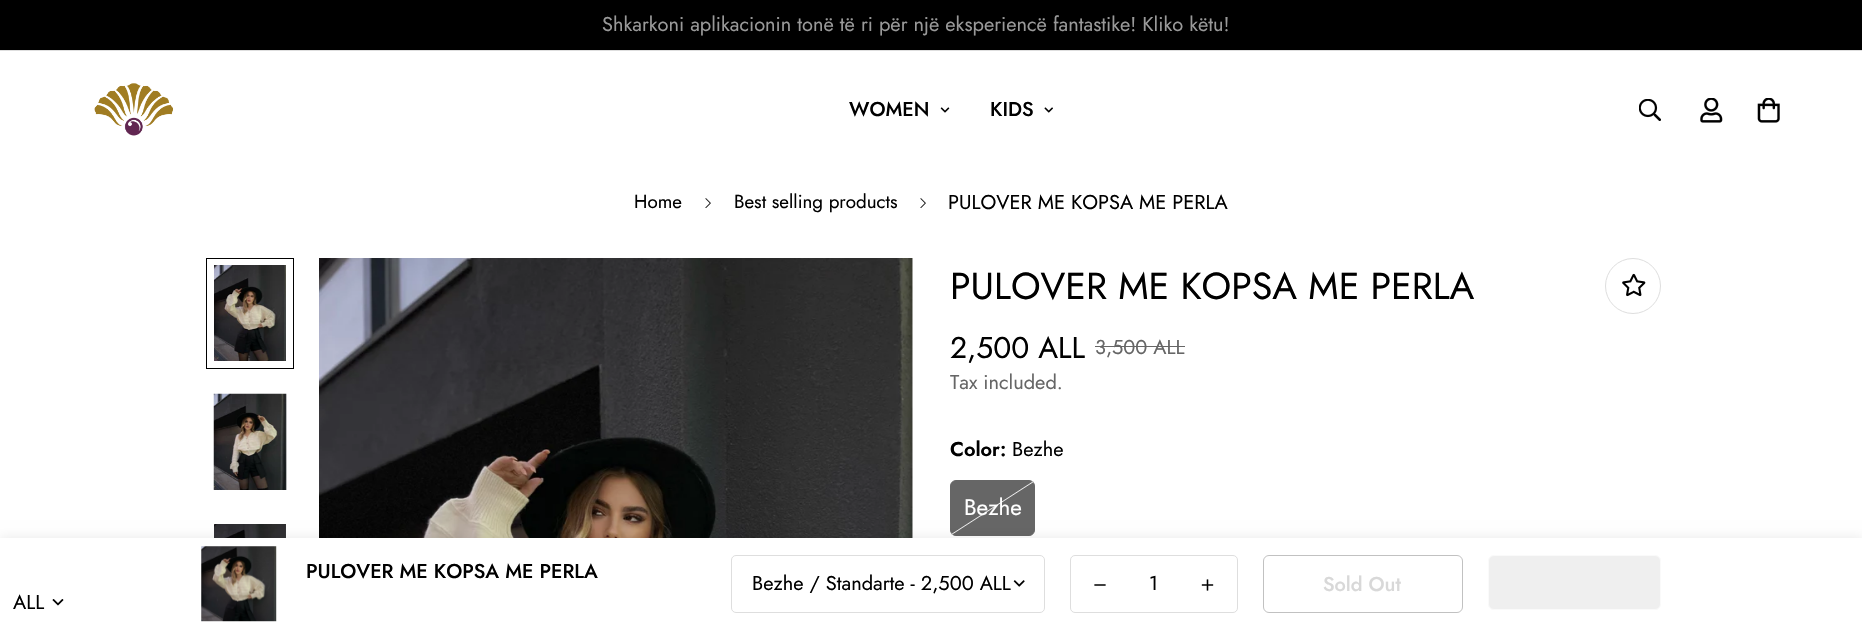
void draw(SkCanvas* canvas) {
  SkPaint paint;
  paint.setAntiAlias(true);
  auto face = [&](const char* family, int weight, float size, bool italic = false) {
    SkFontStyle style(weight, SkFontStyle::kNormal_Width,
      italic ? SkFontStyle::kItalic_Slant : SkFontStyle::kUpright_Slant);
    SkFont result(fontMgr->matchFamilyStyle(family, style), size);
    result.setSubpixel(true);
    return result;
  };
  auto paste = [&](const char* path, float x, float y, float w, float h) {
    auto image = SkImages::DeferredFromEncodedData(SkData::MakeFromFileName(path));
    canvas->drawImageRect(image, SkRect::MakeXYWH(x, y, w, h), SkSamplingOptions());
  };
  canvas->clear(0xffffffff);
  paint.setColor(0xff000000);
  canvas->drawRect(SkRect::MakeXYWH(0, 0, 1862, 50), paint);
  paint.setColor(0xffdedede);
  canvas->drawRect(SkRect::MakeXYWH(0, 50, 1862, 1), paint);
  paste("img/1.png", 94, 83, 79, 53);
  paste("img/2.png", 940, 107, 10, 6);
  paste("img/3.png", 1044, 107, 9, 6);
  paste("img/4.png", 1639, 99, 22, 22);
  paste("img/5.png", 1700, 98, 23, 25);
  paste("img/6.png", 1757, 98, 23, 25);
  paste("img/7.png", 705, 198, 6, 10);
  paste("img/7.png", 920, 198, 6, 10);
  paint.setStroke(true);
  paint.setStrokeWidth(1);
  paint.setColor(0xff000000);
  canvas->drawRect(SkRect::MakeXYWH(206.5f, 258.5f, 87, 110), paint);
  paste("img/8.png", 214, 265, 72, 96);
  paste("img/9.png", 213, 393, 74, 97);
  paste("img/10.png", 214, 524, 72, 14);
  paste("img/11.png", 319, 258, 594, 280);
  paint.setColor(0xffdedede);
  canvas->drawCircle(1633, 286, 27.5f, paint);
  paste("img/12.png", 1622, 273, 24, 24);
  paint.setStroke(false);
  paint.setColor(0xff666666);
  canvas->drawRect(SkRect::MakeXYWH(1095, 346, 90, 1), paint);
  canvas->drawRoundRect(SkRect::MakeXYWH(950.5f, 480.5f, 84, 55), 5.5f, 5.5f, paint);
  paint.setStroke(true);
  canvas->drawRoundRect(SkRect::MakeXYWH(950.5f, 480.5f, 84, 55), 5.5f, 5.5f, paint);
  paint.setStroke(false);
  {
    const SkColor colors[] = {0x00ebebeb, 0xffebebeb, 0x00ebebeb};
    const float stops[] = {0.49f, 0.5f, 0.51f};
    const SkPoint ends[] = {{968, 470}, {1017, 546}};
    paint.setShader(SkGradientShader::MakeLinear(ends, colors, stops, 3, SkTileMode::kClamp));
    paint.setAlpha(255);
  }
  canvas->drawRect(SkRect::MakeXYWH(951, 481, 83, 54), paint);
  paint.setShader(nullptr);
  paint.setColor(0x17000000);
  paint.setMaskFilter(SkMaskFilter::MakeBlur(kNormal_SkBlurStyle, 6));
  canvas->drawRect(SkRect::MakeXYWH(0, 538, 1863, 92), paint);
  paint.setMaskFilter(nullptr);
  paint.setColor(0xffffffff);
  canvas->drawRect(SkRect::MakeXYWH(0, 538, 1862, 91), paint);
  paste("img/13.png", 201, 546, 76, 76);
  paste("img/14.png", 1013, 580, 12, 7);
  paint.setStroke(true);
  paint.setColor(0xffdedede);
  canvas->drawRoundRect(SkRect::MakeXYWH(731.5f, 555.5f, 313, 57), 4.5f, 4.5f, paint);
  canvas->drawRoundRect(SkRect::MakeXYWH(1070.5f, 555.5f, 167, 57), 4.5f, 4.5f, paint);
  paste("img/15.png", 1094, 584, 12, 2);
  paste("img/16.png", 1201, 579, 13, 12);
  paint.setColor(0xffc1c1c1);
  canvas->drawRoundRect(SkRect::MakeXYWH(1263.5f, 555.5f, 199, 57), 5.5f, 5.5f, paint);
  paint.setStroke(false);
  paint.setColor(0xffefefef);
  canvas->drawRoundRect(SkRect::MakeXYWH(1488.5f, 555.5f, 172, 54), 5.5f, 5.5f, paint);
  paint.setStroke(true);
  paint.setColor(0xfffafafa);
  canvas->drawRoundRect(SkRect::MakeXYWH(1488.5f, 555.5f, 172, 54), 5.5f, 5.5f, paint);
  paste("img/17.png", 52, 599, 12, 7);
  auto f0 = face("Jost", 400, 20);
  paint.setStroke(false);
  paint.setColor(0xff999999);
  canvas->drawString("Shkarkoni aplikacionin tonë të ri për një eksperiencë fantastike! Kliko këtu!", 602, 31, f0, paint);
  auto f1 = face("Jost", 500, 20);
  paint.setColor(0xff000000);
  canvas->drawString("WOMEN", 849, 116, f1, paint);
  canvas->drawString("KIDS", 990, 116, f1, paint);
  auto f2 = face("Jost", 400, 18.75f);
  canvas->drawString("Home", 634, 208, f2, paint);
  canvas->drawString("Best selling products", 734, 208, f2, paint);
  canvas->drawString("PULOVER ME KOPSA ME PERLA", 948, 209, f0, paint);
  auto f3 = face("Jost", 400, 37.5f);
  canvas->drawString("PULOVER ME KOPSA ME PERLA", 950, 299, f3, paint);
  auto f4 = face("Jost", 400, 30);
  canvas->drawString("2,500 ALL", 950, 358, f4, paint);
  paint.setColor(0xff666666);
  canvas->drawString("3,500 ALL", 1095, 354, f0, paint);
  canvas->drawString("Tax included.", 950, 389, f0, paint);
  auto f5 = face("Jost", 600, 20);
  paint.setColor(0xff000000);
  canvas->drawString("Color:", 950, 456, f5, paint);
  canvas->drawString("Bezhe", 1012, 456, f0, paint);
  auto f6 = face("Jost", 400, 22.5f);
  paint.setColor(0xffffffff);
  canvas->drawString("Bezhe", 964, 515, f6, paint);
  paint.setColor(0xff000000);
  canvas->drawString("PULOVER ME KOPSA ME PERLA", 306, 578, f1, paint);
  canvas->drawString("Bezhe / Standarte - 2,500 ALL", 752, 590, f0, paint);
  canvas->drawString("1", 1149, 590, f0, paint);
  paint.setColor(0xffd8d8d8);
  canvas->drawString("Sold Out", 1323, 591, f1, paint);
  paint.setColor(0xff000000);
  canvas->drawString("ALL", 13, 609, f0, paint);
}
